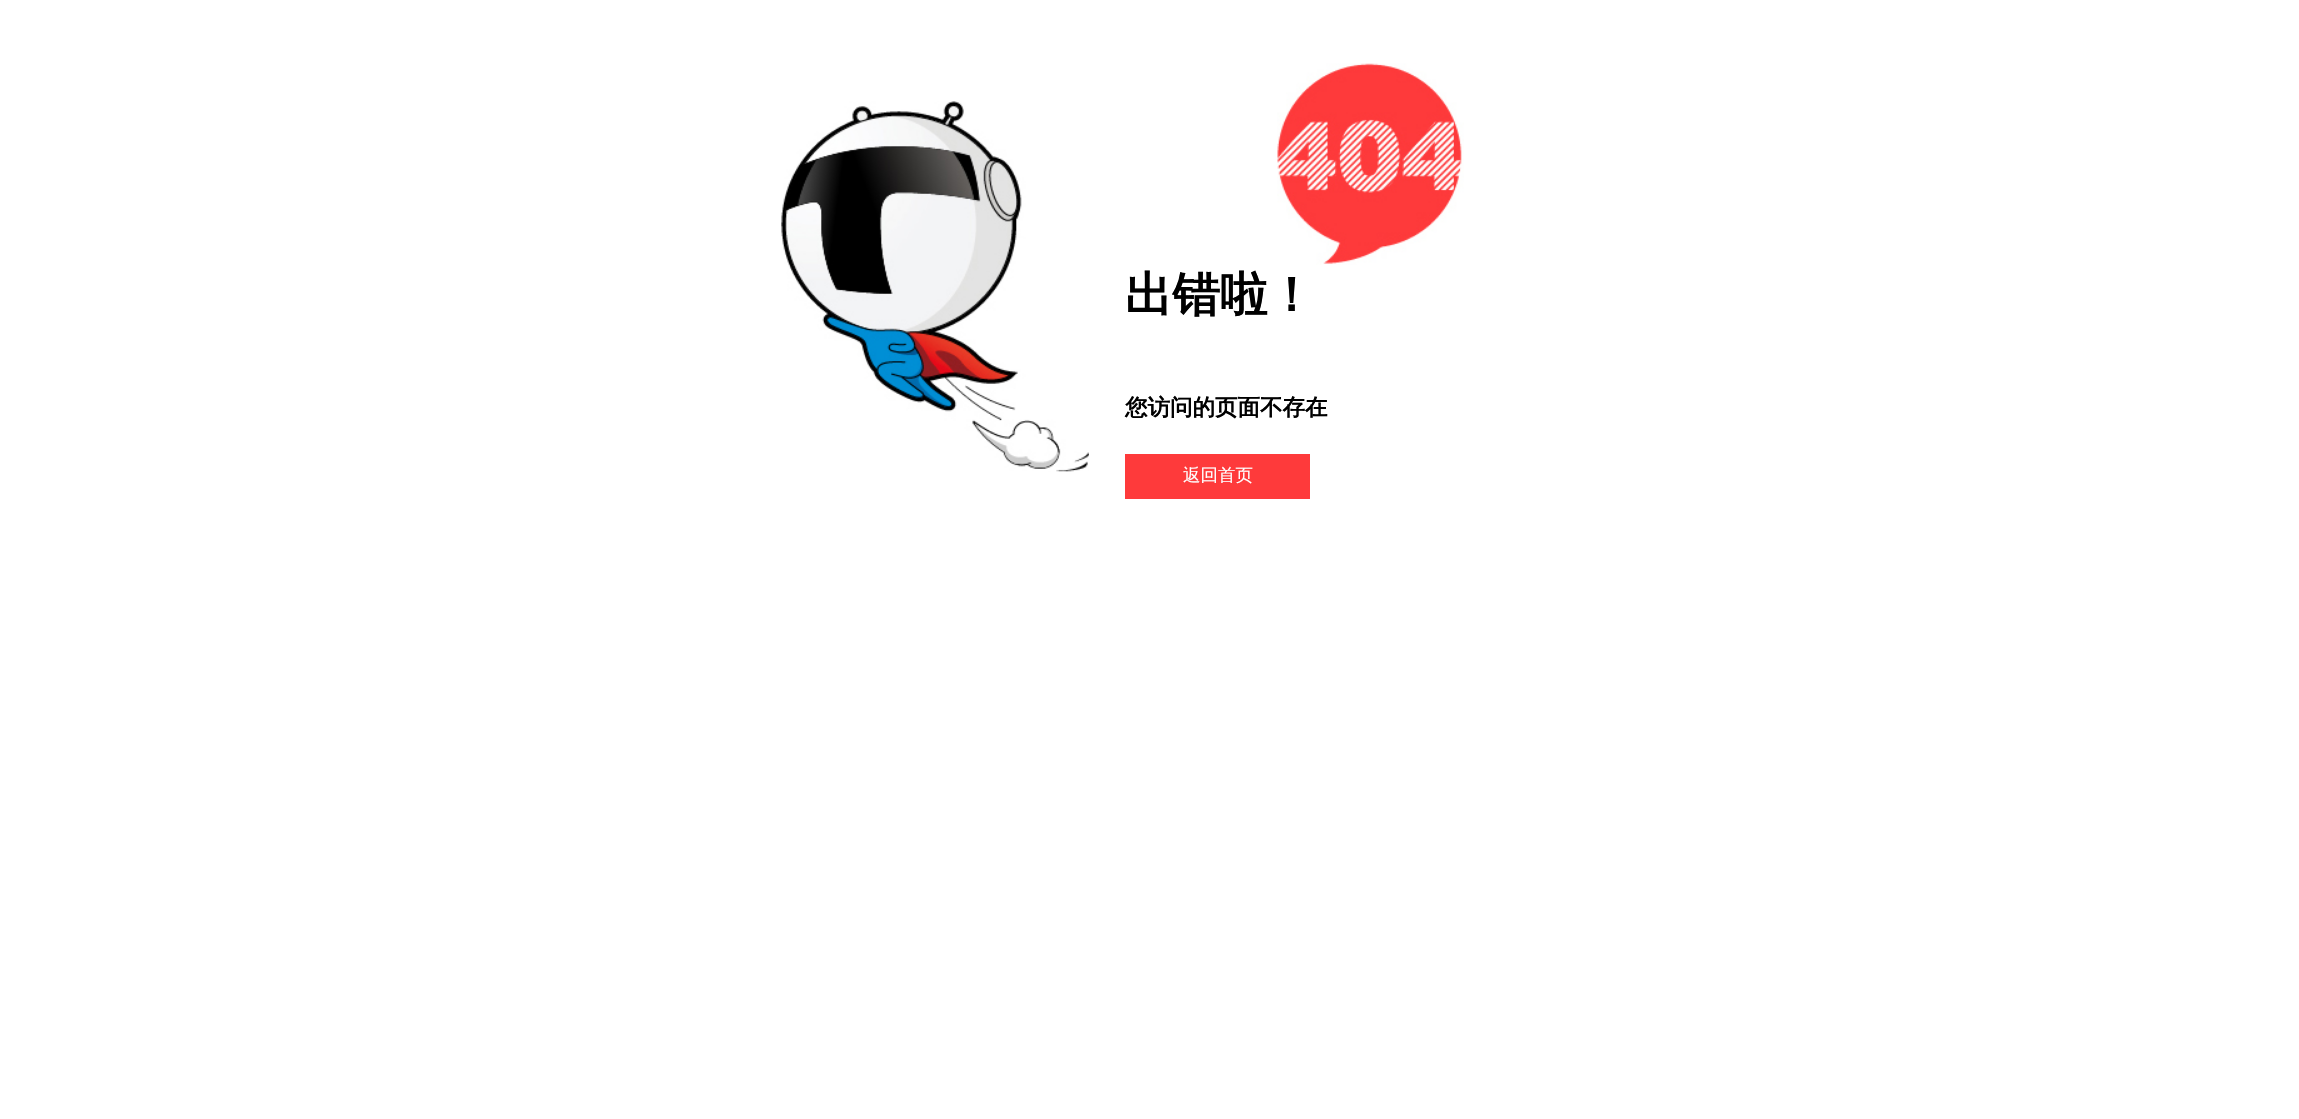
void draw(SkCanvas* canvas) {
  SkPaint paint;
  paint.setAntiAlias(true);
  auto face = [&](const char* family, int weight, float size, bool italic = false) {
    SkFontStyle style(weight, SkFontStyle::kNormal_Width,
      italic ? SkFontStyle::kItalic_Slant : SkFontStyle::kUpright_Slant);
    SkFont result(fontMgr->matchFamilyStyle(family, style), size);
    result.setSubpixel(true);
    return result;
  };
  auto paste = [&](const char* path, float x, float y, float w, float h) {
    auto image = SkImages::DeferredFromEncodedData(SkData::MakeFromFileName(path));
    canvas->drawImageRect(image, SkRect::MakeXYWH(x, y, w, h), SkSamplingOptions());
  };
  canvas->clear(0xffffffff);
  paste("img/1.png", 781, 101, 308, 371);
  paste("img/2.png", 1277, 63, 187, 202);
  paint.setColor(0xfffe3a3b);
  canvas->drawRect(SkRect::MakeXYWH(1125, 454, 185, 45), paint);
  auto f0 = face("WenQuanYi Zen Hei", 700, 47.5f);
  paint.setColor(0xff000000);
  canvas->drawString("出错啦！", 1125, 311, f0, paint);
  auto f1 = face("WenQuanYi Zen Hei", 700, 22.5f);
  canvas->drawString("您访问的页面不存在", 1125, 415, f1, paint);
  auto f2 = face("WenQuanYi Zen Hei", 500, 17.5f);
  paint.setColor(0xffffffff);
  canvas->drawString("返回首页", 1183, 481, f2, paint);
}
